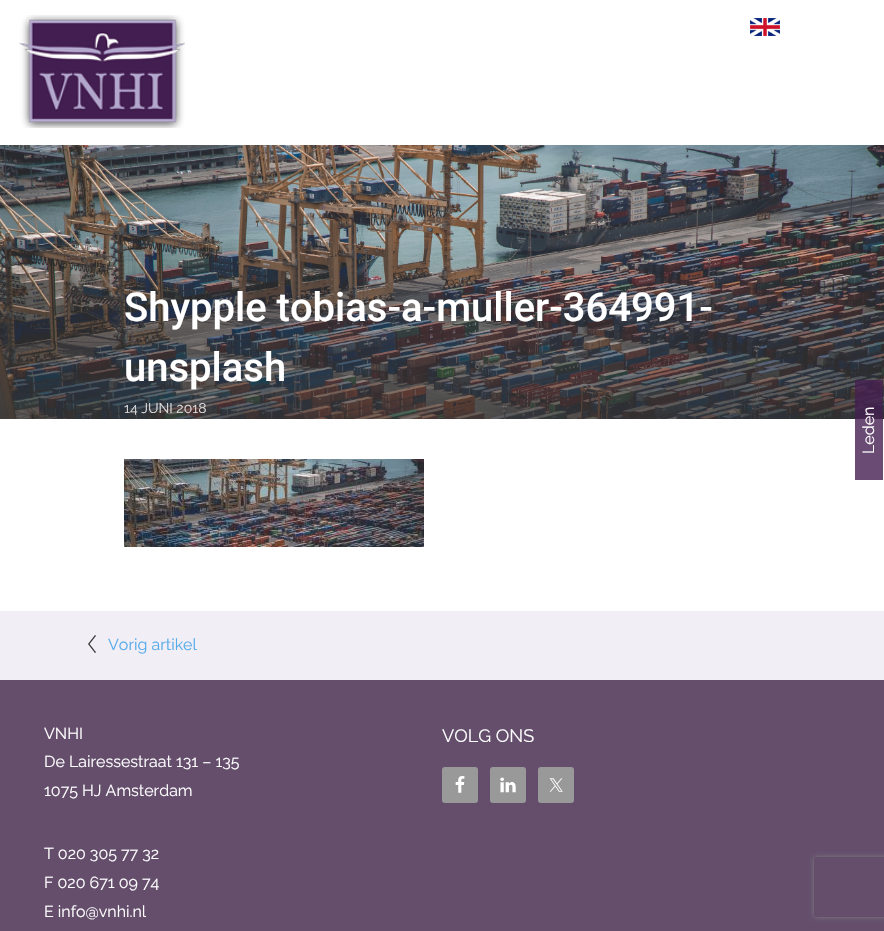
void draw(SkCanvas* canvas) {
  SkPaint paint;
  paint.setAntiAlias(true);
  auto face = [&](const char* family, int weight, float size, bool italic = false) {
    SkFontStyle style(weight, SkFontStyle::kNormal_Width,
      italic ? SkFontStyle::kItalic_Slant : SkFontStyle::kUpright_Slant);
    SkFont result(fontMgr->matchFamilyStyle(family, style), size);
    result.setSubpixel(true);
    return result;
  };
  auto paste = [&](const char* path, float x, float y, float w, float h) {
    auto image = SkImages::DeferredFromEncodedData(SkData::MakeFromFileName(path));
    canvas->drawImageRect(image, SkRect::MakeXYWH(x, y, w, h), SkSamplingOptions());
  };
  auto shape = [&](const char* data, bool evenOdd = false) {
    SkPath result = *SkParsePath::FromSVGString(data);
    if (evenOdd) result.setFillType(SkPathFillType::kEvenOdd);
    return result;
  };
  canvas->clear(0xffffffff);
  paste("img/1.png", 19, 15, 166, 113);
  paste("img/2.png", 750, 18, 30, 18);
  paste("img/3.png", 0, 145, 884, 274);
  paint.setColor(0xcc431e50);
  canvas->drawRect(SkRect::MakeXYWH(855, 380, 28, 100), paint);
  paste("img/4.png", 124, 459, 300, 88);
  paint.setColor(0xfff1eef6);
  canvas->drawRect(SkRect::MakeXYWH(0, 611, 884, 69), paint);
  paste("img/5.png", 88, 635, 8, 18);
  paint.setColor(0xff644e6c);
  canvas->drawRect(SkRect::MakeXYWH(0, 680, 884, 251), paint);
  paint.setColor(0xff999999);
  canvas->drawRoundRect(SkRect::MakeXYWH(442, 767, 36, 36), 3, 3, paint);
  paste("img/6.png", 455, 776, 10, 17);
  canvas->drawRoundRect(SkRect::MakeXYWH(490, 767, 36, 36), 3, 3, paint);
  paste("img/7.png", 500, 777, 16, 16);
  canvas->drawRoundRect(SkRect::MakeXYWH(538, 767, 36, 36), 3, 3, paint);
  paste("img/8.png", 549, 778, 14, 14);
  canvas->save();
  canvas->clipPath(shape("M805 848H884V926H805ZM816 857H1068C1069 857 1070 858 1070 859V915C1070 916 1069 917 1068 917H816C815 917 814 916 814 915V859C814 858 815 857 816 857Z", true), true);
  paint.setColor(0xff808080);
  paint.setMaskFilter(SkMaskFilter::MakeBlur(kNormal_SkBlurStyle, 2.5f));
  canvas->drawRoundRect(SkRect::MakeXYWH(814, 857, 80, 60), 2, 2, paint);
  paint.setMaskFilter(nullptr);
  canvas->restore();
  auto f0 = face("Roboto", 500, 40);
  paint.setColor(0xffffffff);
  canvas->drawString("Shypple tobias-a-muller-364991-", 124, 321, f0, paint);
  canvas->drawString("unsplash", 124, 381, f0, paint);
  auto f1 = face("Raleway", 400, 14);
  paint.setColor(0xffdddddd);
  canvas->drawString("14 JUNI 2018", 124, 413, f1, paint);
  auto f2 = face("Raleway", 400, 16);
  paint.setColor(0xffffffff);
  canvas->save();
  canvas->rotate(-90, 874, 454);
  canvas->drawString("Leden", 874, 454, f2, paint);
  canvas->restore();
  paint.setColor(0xff57acea);
  canvas->drawString("Vorig artikel", 108, 650, f2, paint);
  paint.setColor(0xffffffff);
  {
    const struct { const char* s; float x, y; } items[] = {
      {"VNHI", 44, 739},
      {"De Lairessestraat 131 – 135", 44, 767},
      {"1075 HJ Amsterdam", 44, 796},
      {"T 020 305 77 32", 44, 859},
      {"F 020 671 09 74", 44, 888},
      {"E info@vnhi.nl", 44, 917},
    };
    for (auto [s, x, y] : items) {
      canvas->drawString(s, x, y, f2, paint);
    }
  }
  auto f3 = face("Raleway", 400, 18);
  canvas->drawString("VOLG ONS", 442, 742, f3, paint);
}
